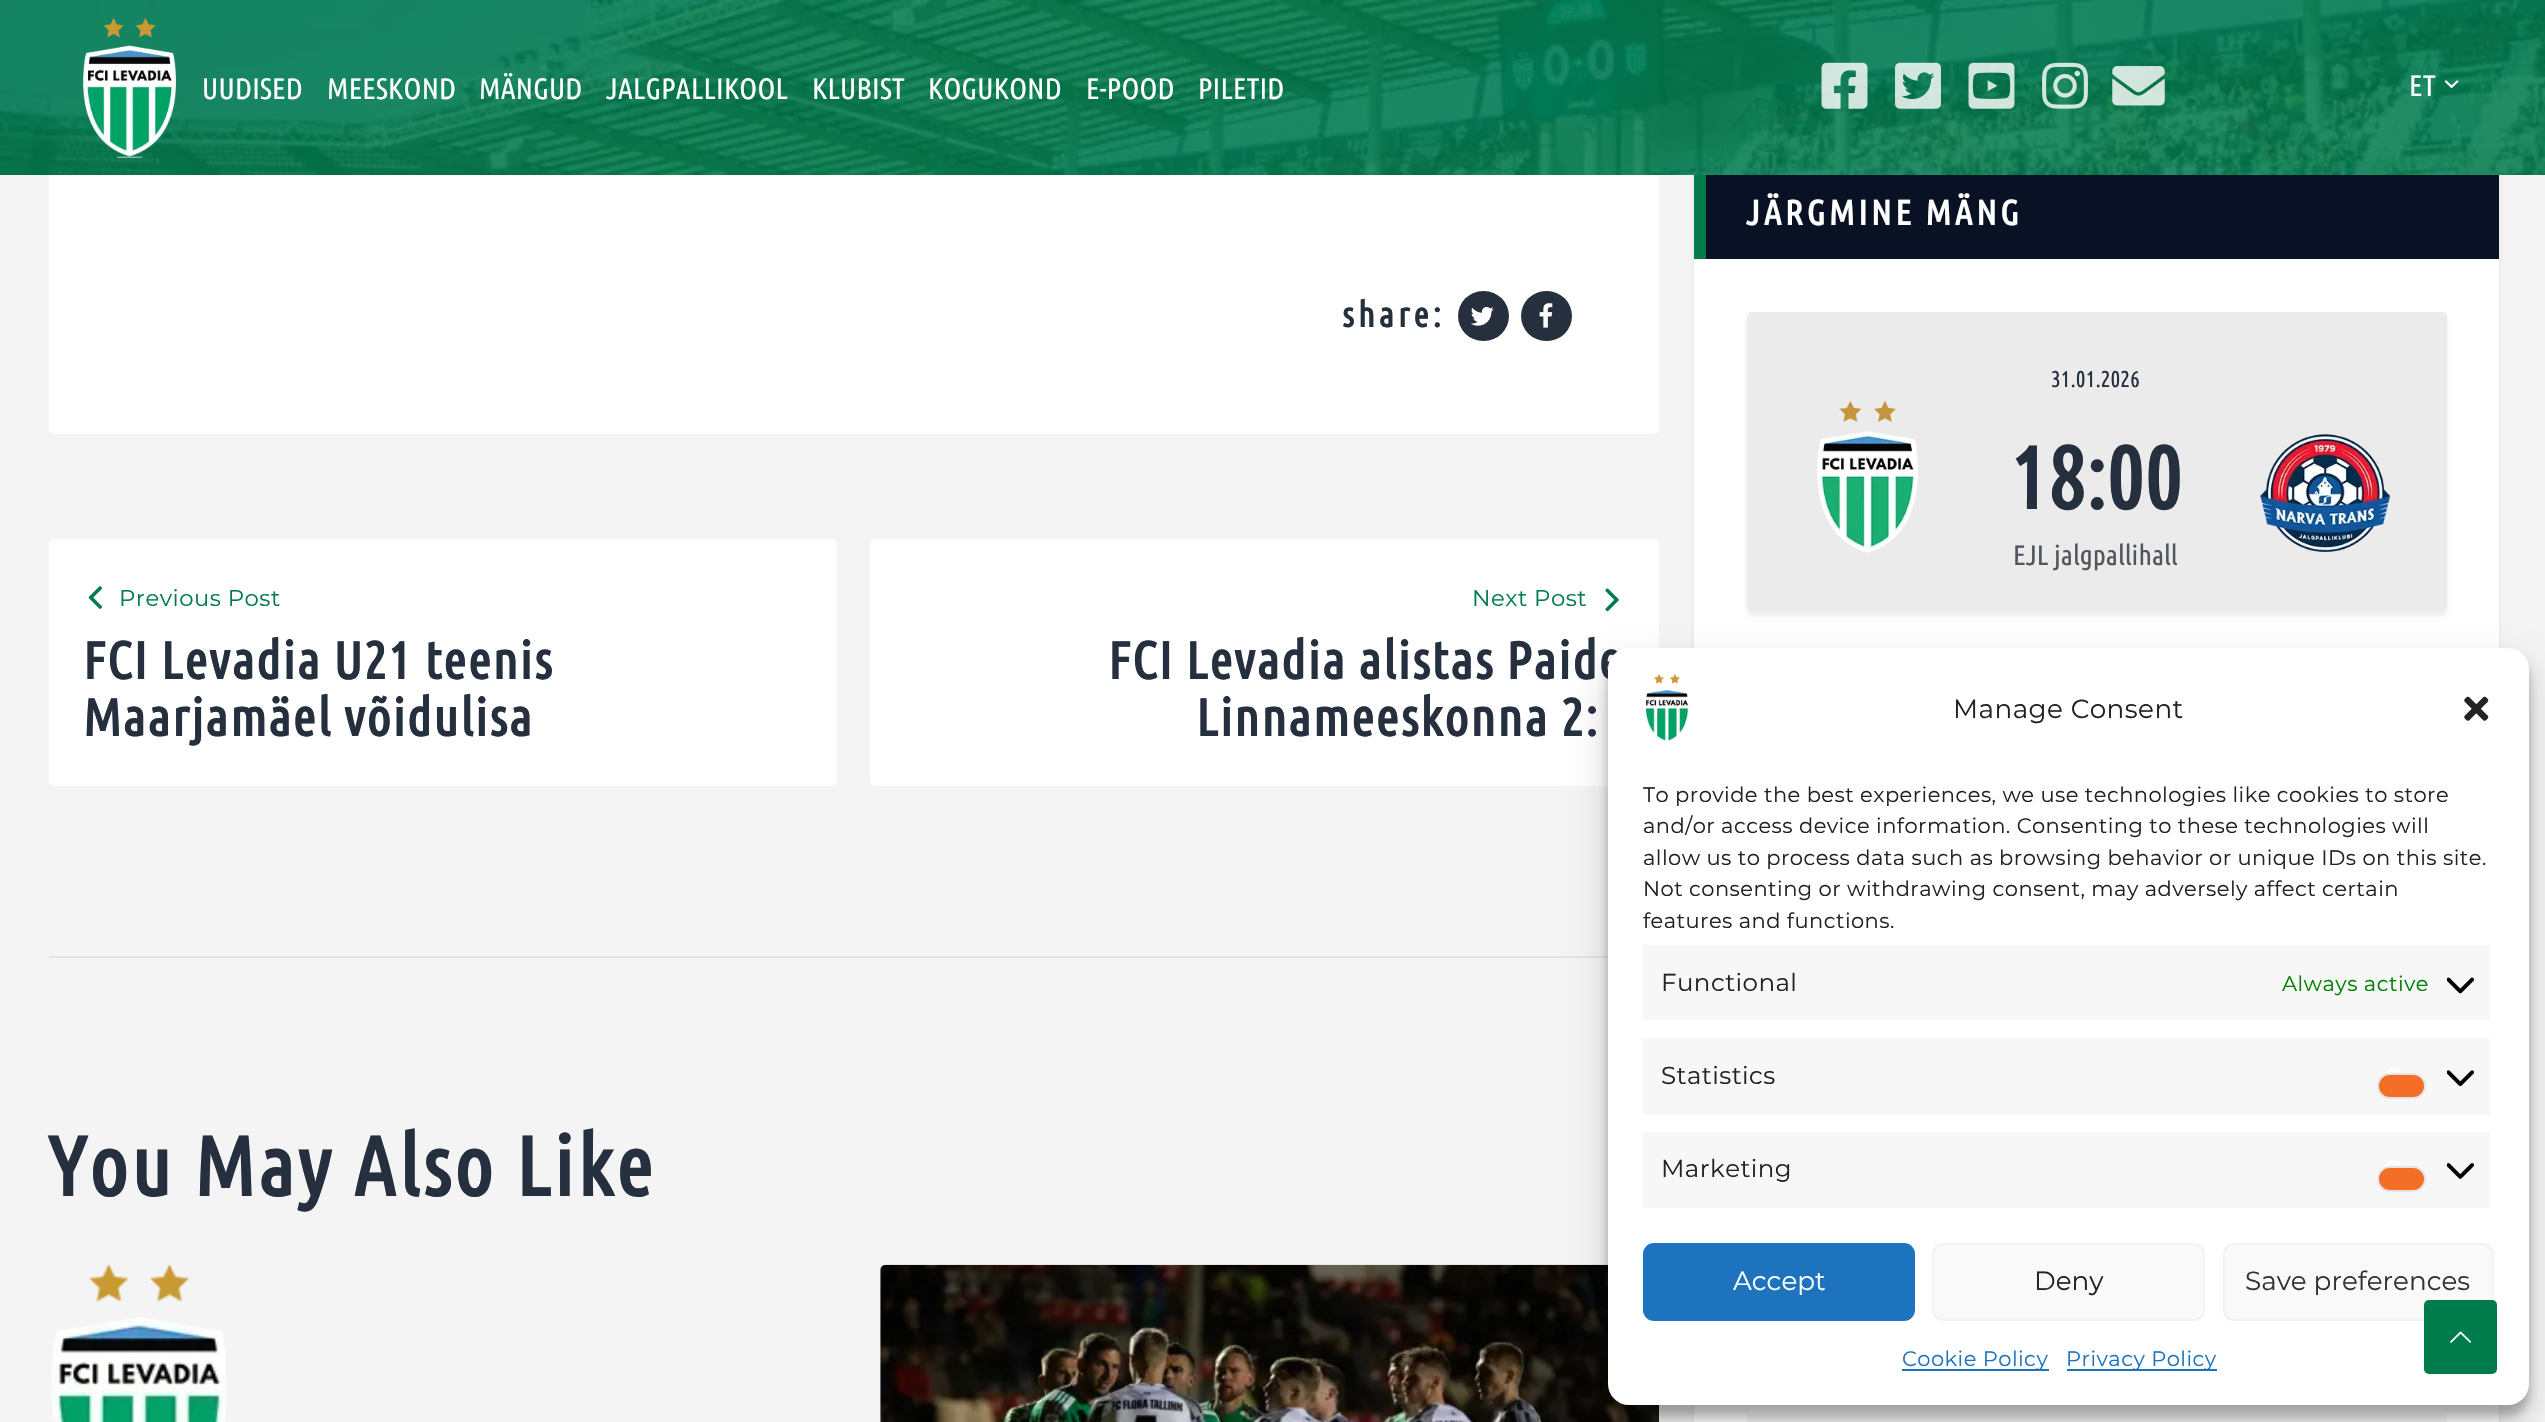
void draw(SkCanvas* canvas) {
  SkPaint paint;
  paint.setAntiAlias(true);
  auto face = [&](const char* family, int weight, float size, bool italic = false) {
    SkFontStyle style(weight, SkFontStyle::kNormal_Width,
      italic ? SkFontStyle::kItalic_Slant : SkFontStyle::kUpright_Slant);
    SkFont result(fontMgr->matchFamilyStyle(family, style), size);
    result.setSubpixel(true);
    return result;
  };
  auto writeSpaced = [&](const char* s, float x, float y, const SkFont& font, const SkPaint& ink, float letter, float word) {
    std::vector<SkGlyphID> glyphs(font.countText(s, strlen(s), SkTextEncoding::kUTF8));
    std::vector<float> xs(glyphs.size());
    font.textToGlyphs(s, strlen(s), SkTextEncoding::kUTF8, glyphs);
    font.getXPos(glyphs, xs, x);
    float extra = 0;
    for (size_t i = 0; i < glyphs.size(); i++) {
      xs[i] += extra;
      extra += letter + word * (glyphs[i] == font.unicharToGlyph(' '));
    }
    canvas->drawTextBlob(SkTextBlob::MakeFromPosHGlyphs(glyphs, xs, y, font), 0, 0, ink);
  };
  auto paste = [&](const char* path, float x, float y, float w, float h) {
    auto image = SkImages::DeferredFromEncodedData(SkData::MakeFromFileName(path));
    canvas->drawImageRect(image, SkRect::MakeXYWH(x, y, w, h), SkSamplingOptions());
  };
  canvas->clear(0xfff4f4f4);
  paint.setColor(0xffffffff);
  canvas->drawRoundRect(SkRect::MakeXYWH(49, -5, 1610, 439), 5, 5, paint);
  paint.setColor(0x12000000);
  paint.setMaskFilter(SkMaskFilter::MakeBlur(kNormal_SkBlurStyle, 2.5f));
  canvas->drawRoundRect(SkRect::MakeXYWH(1694, 170, 805, 499), 5, 5, paint);
  paint.setMaskFilter(nullptr);
  paste("img/1.png", 0, 0, 2545, 175);
  paste("img/2.png", 83, 17, 93, 141);
  paste("img/3.png", 1821, 62, 47, 47);
  paste("img/4.png", 1895, 62, 46, 47);
  paste("img/5.png", 1968, 62, 47, 47);
  paste("img/6.png", 2042, 62, 46, 47);
  paste("img/7.png", 2112, 66, 53, 40);
  paste("img/8.png", 2444, 80, 15, 8);
  paint.setColor(0xff262f3e);
  canvas->drawRoundRect(SkRect::MakeXYWH(1458, 291, 51, 50), 25, 25, paint);
  paste("img/9.png", 1470, 306, 24, 20);
  canvas->drawRoundRect(SkRect::MakeXYWH(1521, 291, 51, 50), 25, 25, paint);
  paste("img/10.png", 1539, 303, 14, 25);
  paint.setColor(0xffffffff);
  canvas->drawRoundRect(SkRect::MakeXYWH(49, 539, 788, 247), 5, 5, paint);
  paste("img/11.png", 88, 586, 14, 23);
  canvas->drawRoundRect(SkRect::MakeXYWH(870, 539, 789, 247), 5, 5, paint);
  paste("img/12.png", 1605, 588, 14, 24);
  paint.setColor(0xffe3e3e3);
  canvas->drawRect(SkRect::MakeXYWH(49, 956, 1559, 2), paint);
  paste("img/13.png", 51, 1264, 175, 158);
  paste("img/14.png", 880, 1264, 779, 158);
  {
    const struct { float x, y, w, h; SkColor color; } items[] = {
      {1694, 259, 805, 389, 0xffffffff},
      {1706, 175, 793, 84, 0xff081224},
      {1694, 175, 12, 84, 0xff007b4c},
    };
    for (auto [x, y, w, h, color] : items) {
      paint.setColor(color);
      canvas->drawRect(SkRect::MakeXYWH(x, y, w, h), paint);
    }
  }
  paint.setColor(0x12000000);
  paint.setMaskFilter(SkMaskFilter::MakeBlur(kNormal_SkBlurStyle, 2.5f));
  canvas->drawRoundRect(SkRect::MakeXYWH(1747, 317, 700, 299), 5, 5, paint);
  paint.setMaskFilter(nullptr);
  paint.setColor(0xffebebeb);
  canvas->drawRoundRect(SkRect::MakeXYWH(1747, 312, 700, 299), 5, 5, paint);
  paste("img/15.png", 1817, 401, 101, 152);
  paste("img/16.png", 2260, 434, 131, 118);
  paint.setColor(0x12000000);
  paint.setMaskFilter(SkMaskFilter::MakeBlur(kNormal_SkBlurStyle, 2.5f));
  canvas->drawRoundRect(SkRect::MakeXYWH(1694, 1272, 805, 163), 5, 5, paint);
  paint.setMaskFilter(nullptr);
  paint.setColor(0xffffffff);
  canvas->drawRect(SkRect::MakeXYWH(1694, 1405, 805, 17), paint);
  paint.setColor(0xfff4f4f4);
  canvas->drawRect(SkRect::MakeXYWH(1747, 1414, 700, 8), paint);
  paint.setColor(0x3b000000);
  paint.setMaskFilter(SkMaskFilter::MakeBlur(kNormal_SkBlurStyle, 5));
  canvas->drawRoundRect(SkRect::MakeXYWH(1608, 658, 921, 758), 21, 21, paint);
  paint.setMaskFilter(nullptr);
  paint.setColor(0x30000000);
  paint.setMaskFilter(SkMaskFilter::MakeBlur(kNormal_SkBlurStyle, 17.5f));
  canvas->drawRoundRect(SkRect::MakeXYWH(1608, 665, 921, 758), 21, 21, paint);
  paint.setMaskFilter(nullptr);
  auto f0 = face("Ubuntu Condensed", 400, 29.5f);
  paint.setColor(0xffffffff);
  {
    const struct { const char* s; float x, y; } items[] = {
      {"UUDISED", 202, 99},
      {"MEESKOND", 327, 99},
      {"MÄNGUD", 479, 99},
      {"JALGPALLIKOOL", 606, 99},
      {"KLUBIST", 812, 99},
      {"KOGUKOND", 928, 99},
      {"E-POOD", 1086, 99},
      {"PILETID", 1198, 99},
    };
    for (auto [s, x, y] : items) {
      writeSpaced(s, x, y, f0, paint, 0.25f, 0);
    }
  }
  writeSpaced("ET", 2409, 96, f0, paint, 0.45f, 0);
  auto f1 = face("Ubuntu Condensed", 700, 35);
  paint.setColor(0xff262f3e);
  writeSpaced("share:", 1342, 327, f1, paint, 4, 0);
  auto f2 = face("Montserrat", 400, 22.75f);
  paint.setColor(0xff007b4c);
  writeSpaced("Previous Post", 119, 606, f2, paint, 0.5f, 0);
  auto f3 = face("Ubuntu Condensed", 700, 52.5f);
  paint.setColor(0xff262f3e);
  writeSpaced("FCI Levadia U21 teenis", 83, 679, f3, paint, 1.75f, 0);
  writeSpaced("Maarjamäel võidulisa", 83, 736, f3, paint, 1.75f, 0);
  paint.setColor(0xff007b4c);
  writeSpaced("Next Post", 1472, 606, f2, paint, 0.5f, 0);
  paint.setColor(0xff262f3e);
  writeSpaced("FCI Levadia alistas Paide", 1108, 679, f3, paint, 1.75f, 0);
  writeSpaced("Linnameeskonna 2:", 1196, 736, f3, paint, 1.75f, 0);
  auto f4 = face("Ubuntu Condensed", 700, 84);
  writeSpaced("You May Also Like", 48, 1196, f4, paint, 3.1f, 0);
  paint.setColor(0xffffffff);
  writeSpaced("JÄRGMINE MÄNG", 1746, 225, f1, paint, 3.8f, 0);
  auto f5 = face("Ubuntu Condensed", 400, 22.75f);
  paint.setColor(0xff262f3e);
  canvas->drawString("31.01.2026", 2051, 387, f5, paint);
  auto f6 = face("Ubuntu Condensed", 700, 88);
  canvas->drawString("18:00", 2010, 509, f6, paint);
  auto f7 = face("Ubuntu Condensed", 400, 28);
  paint.setColor(0xff51555c);
  canvas->drawString("EJL jalgpallihall", 2013, 565, f7, paint);
  paint.setColor(0xffffffff);
  canvas->drawRoundRect(SkRect::MakeXYWH(1608, 648, 921, 757), 21, 21, paint);
  paste("img/17.png", 1645, 673, 44, 68);
  auto f8 = face("Montserrat", 400, 26.25f);
  paint.setColor(0xff222222);
  writeSpaced("Manage Consent", 1953, 718, f8, paint, 0.45f, 0);
  paste("img/18.png", 2464, 696, 25, 25);
  auto f9 = face("Montserrat", 400, 21);
  {
    const struct { const char* s; float x, y; } items[] = {
      {"To provide the best experiences, we use technologies like cookies to store", 1643, 802},
      {"and/or access device information. Consenting to these technologies will", 1643, 833},
      {"allow us to process data such as browsing behavior or unique IDs on this site.", 1643, 865},
      {"Not consenting or withdrawing consent, may adversely affect certain", 1643, 896},
      {"features and functions.", 1643, 928},
    };
    for (auto [s, x, y] : items) {
      writeSpaced(s, x, y, f9, paint, 0.45f, 0);
    }
  }
  paint.setColor(0xfff7f7f7);
  canvas->drawRect(SkRect::MakeXYWH(1643, 945, 847, 75), paint);
  auto f10 = face("Montserrat", 400, 24.5f);
  paint.setColor(0xff222222);
  writeSpaced("Functional", 1661, 991, f10, paint, 0.45f, 0);
  paint.setColor(0xff008000);
  writeSpaced("Always active", 2282, 991, f9, paint, 0.45f, 0);
  paste("img/19.png", 2447, 977, 27, 17);
  paint.setColor(0xfff7f7f7);
  canvas->drawRect(SkRect::MakeXYWH(1643, 1038, 847, 77), paint);
  paint.setColor(0xff222222);
  writeSpaced("Statistics", 1661, 1084, f10, paint, 0.45f, 0);
  paint.setColor(0xffffffff);
  canvas->drawCircle(2393.5f, 1077.5f, 9.5f, paint);
  paint.setColor(0xfff56e28);
  canvas->drawRoundRect(SkRect::MakeXYWH(2378, 1074, 47, 24), 12, 12, paint);
  paint.setStroke(true);
  paint.setStrokeWidth(2);
  paint.setColor(0xffe4e4e4);
  canvas->drawRoundRect(SkRect::MakeXYWH(2378, 1074, 47, 24), 12, 12, paint);
  paste("img/20.png", 2447, 1070, 27, 17);
  paint.setStroke(false);
  paint.setColor(0xfff7f7f7);
  canvas->drawRect(SkRect::MakeXYWH(1643, 1132, 847, 76), paint);
  paint.setColor(0xff222222);
  writeSpaced("Marketing", 1661, 1177, f10, paint, 0.45f, 0);
  paint.setColor(0xffffffff);
  canvas->drawRoundRect(SkRect::MakeXYWH(2384, 1160, 19, 20), 9.5f, 9.5f, paint);
  paint.setColor(0xfff56e28);
  canvas->drawRoundRect(SkRect::MakeXYWH(2378, 1167, 47, 24), 12, 12, paint);
  paint.setStroke(true);
  paint.setColor(0xffe4e4e4);
  canvas->drawRoundRect(SkRect::MakeXYWH(2378, 1167, 47, 24), 12, 12, paint);
  paste("img/21.png", 2447, 1163, 27, 16);
  paint.setStroke(false);
  paint.setColor(0xff1e73be);
  canvas->drawRoundRect(SkRect::MakeXYWH(1644, 1244, 270, 76), 10, 10, paint);
  paint.setStroke(true);
  canvas->drawRoundRect(SkRect::MakeXYWH(1644, 1244, 270, 76), 10, 10, paint);
  paint.setStroke(false);
  paint.setColor(0xffffffff);
  canvas->drawString("Accept", 1733, 1290, f8, paint);
  paint.setColor(0xfff9f9f9);
  canvas->drawRoundRect(SkRect::MakeXYWH(1933, 1244, 271, 76), 10, 10, paint);
  paint.setStroke(true);
  paint.setColor(0xfff2f2f2);
  canvas->drawRoundRect(SkRect::MakeXYWH(1933, 1244, 271, 76), 10, 10, paint);
  paint.setStroke(false);
  paint.setColor(0xff222222);
  canvas->drawString("Deny", 2034, 1290, f8, paint);
  paint.setColor(0xfff9f9f9);
  canvas->drawRoundRect(SkRect::MakeXYWH(2224, 1244, 269, 76), 10, 10, paint);
  paint.setStroke(true);
  paint.setColor(0xfff2f2f2);
  canvas->drawRoundRect(SkRect::MakeXYWH(2224, 1244, 269, 76), 10, 10, paint);
  paint.setStroke(false);
  paint.setColor(0xff333333);
  canvas->drawString("Save preferences", 2245, 1290, f8, paint);
  paint.setColor(0xff1e73be);
  canvas->drawRect(SkRect::MakeXYWH(1902, 1369, 147, 2), paint);
  writeSpaced("Cookie Policy", 1902, 1366, f9, paint, 0.45f, 0);
  canvas->drawRect(SkRect::MakeXYWH(2067, 1369, 150, 2), paint);
  writeSpaced("Privacy Policy", 2066, 1366, f9, paint, 0.45f, 0);
  paint.setColor(0xff007b4c);
  canvas->drawRoundRect(SkRect::MakeXYWH(2424, 1300, 73, 74), 5, 5, paint);
  paste("img/22.png", 2450, 1331, 22, 12);
}
